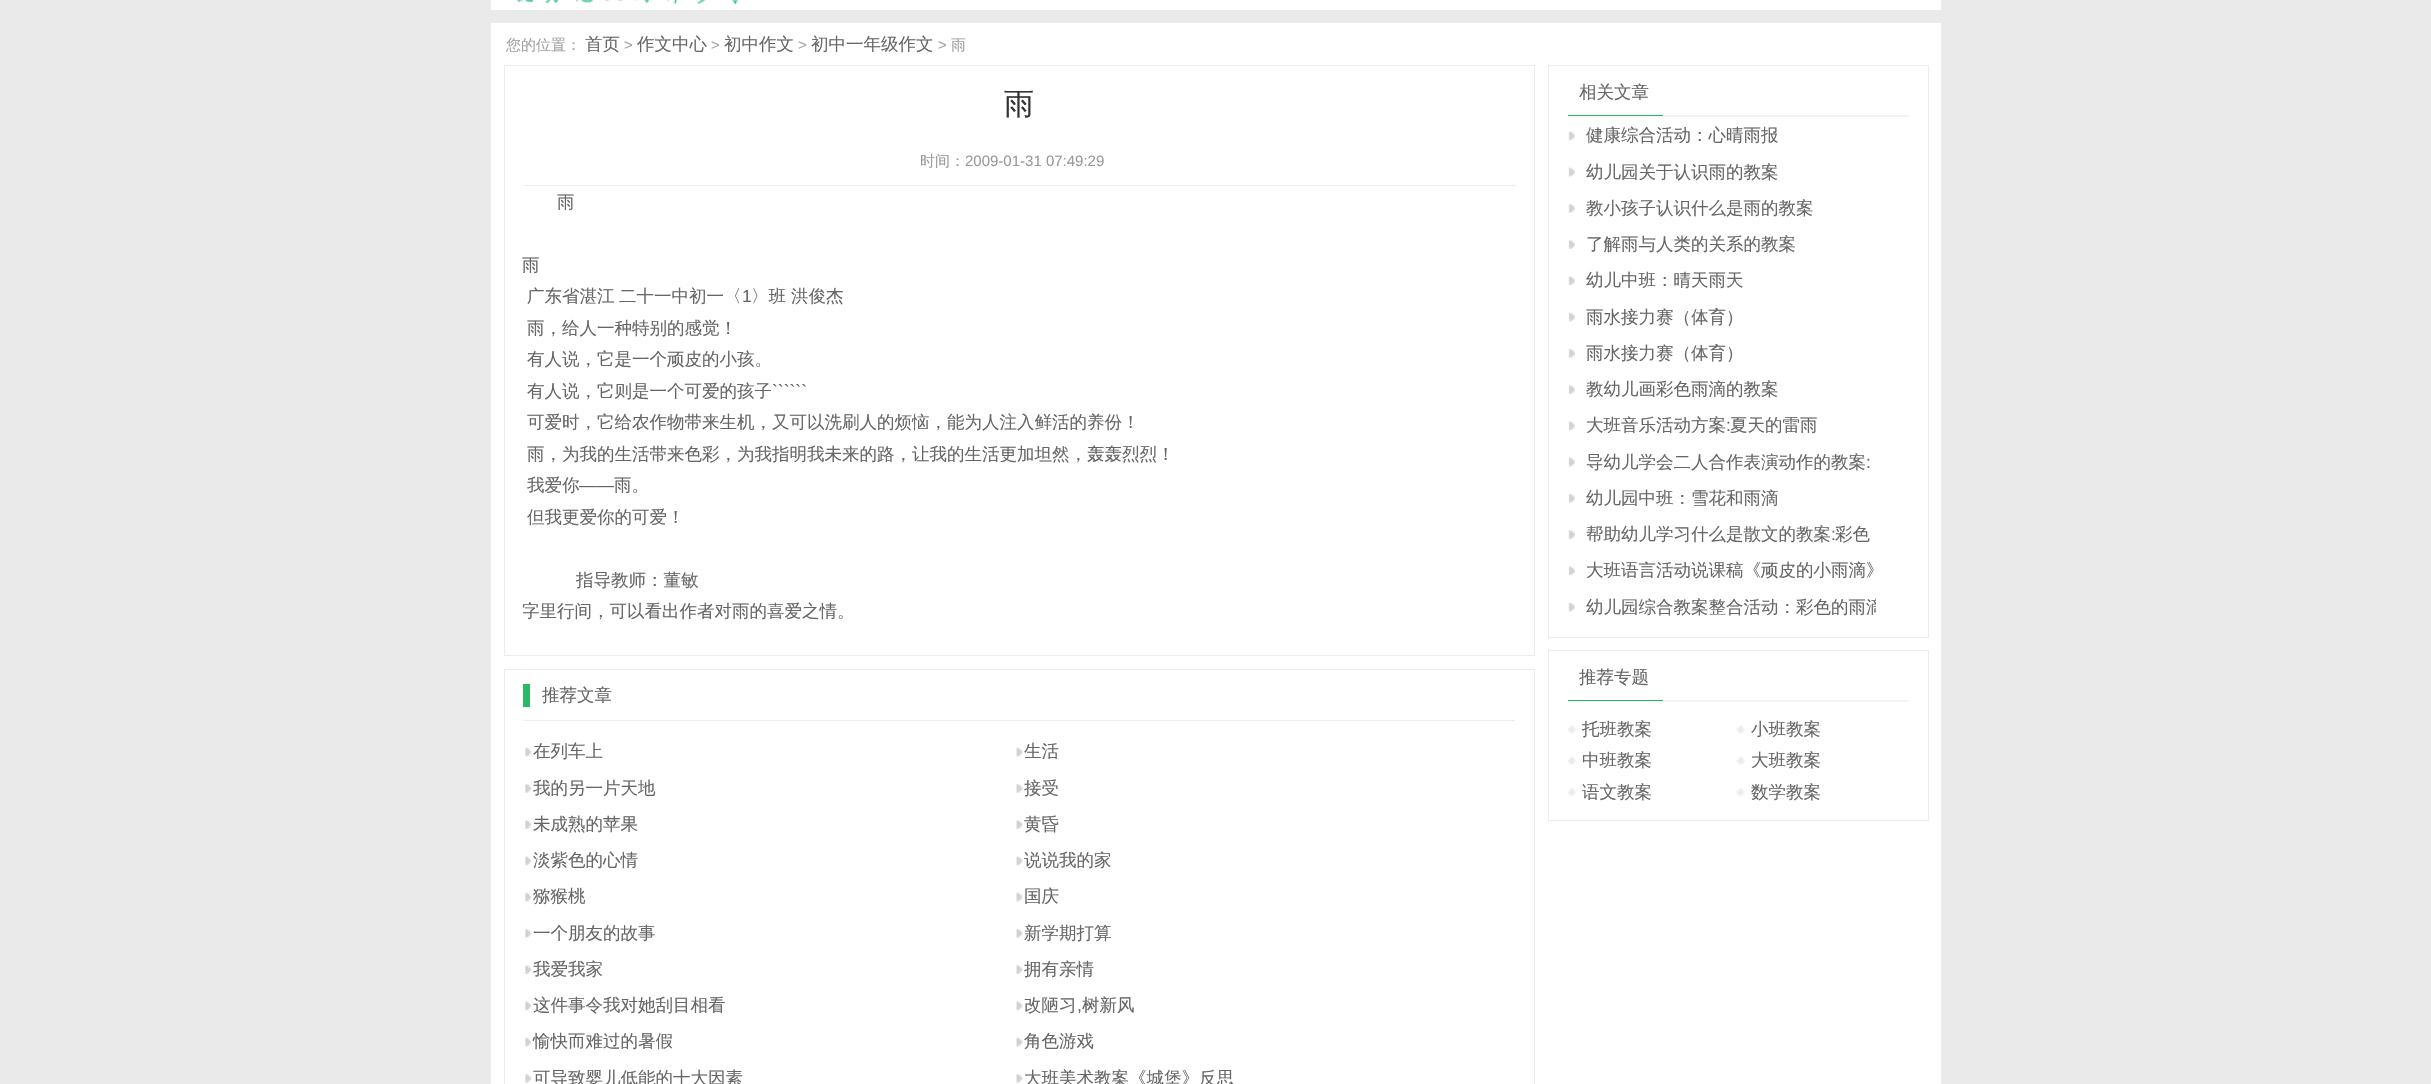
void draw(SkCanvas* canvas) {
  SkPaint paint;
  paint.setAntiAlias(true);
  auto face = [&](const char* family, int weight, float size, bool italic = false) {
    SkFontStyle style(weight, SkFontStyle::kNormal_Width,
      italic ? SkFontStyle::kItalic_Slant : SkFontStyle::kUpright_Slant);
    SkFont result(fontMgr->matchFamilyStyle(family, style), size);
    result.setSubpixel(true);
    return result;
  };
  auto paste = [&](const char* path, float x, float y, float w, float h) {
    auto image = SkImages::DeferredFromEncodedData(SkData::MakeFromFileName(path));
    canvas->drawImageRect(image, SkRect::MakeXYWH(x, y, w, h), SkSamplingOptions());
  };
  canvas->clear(0xffeaeaea);
  paint.setColor(0xffffffff);
  canvas->drawRect(SkRect::MakeXYWH(491, 0, 1450, 10), paint);
  paste("img/1.png", 517, 0, 221, 5);
  canvas->drawRect(SkRect::MakeXYWH(491, 23, 1450, 1061), paint);
  paint.setStroke(true);
  paint.setStrokeWidth(1);
  paint.setColor(0xffececec);
  canvas->drawRect(SkRect::MakeXYWH(504.5f, 65.5f, 1030, 590), paint);
  paint.setStroke(false);
  paint.setColor(0xffeeeeee);
  canvas->drawRect(SkRect::MakeXYWH(523, 185, 993, 1), paint);
  paint.setStroke(true);
  paint.setColor(0xffececec);
  canvas->drawRect(SkRect::MakeXYWH(504.5f, 669.5f, 1030, 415), paint);
  paint.setStroke(false);
  paint.setColor(0xff2bb967);
  canvas->drawRect(SkRect::MakeXYWH(523, 684, 7, 23), paint);
  paint.setColor(0xffececec);
  canvas->drawRect(SkRect::MakeXYWH(524, 720, 991, 1), paint);
  paste("img/2.png", 525, 747, 7, 10);
  paste("img/3.png", 1016, 747, 7, 10);
  paste("img/4.png", 525, 784, 7, 9);
  paste("img/5.png", 1016, 784, 7, 9);
  paste("img/6.png", 525, 820, 7, 9);
  paste("img/7.png", 1016, 820, 7, 9);
  paste("img/8.png", 525, 856, 7, 10);
  paste("img/9.png", 1016, 856, 7, 10);
  paste("img/2.png", 525, 892, 7, 10);
  paste("img/3.png", 1016, 892, 7, 10);
  paste("img/4.png", 525, 929, 7, 9);
  paste("img/5.png", 1016, 929, 7, 9);
  paste("img/6.png", 525, 965, 7, 9);
  paste("img/7.png", 1016, 965, 7, 9);
  paste("img/8.png", 525, 1001, 7, 10);
  paste("img/9.png", 1016, 1001, 7, 10);
  paste("img/10.png", 525, 1037, 7, 10);
  paste("img/11.png", 1016, 1037, 7, 10);
  paste("img/4.png", 525, 1074, 7, 9);
  paste("img/5.png", 1016, 1074, 7, 9);
  paint.setStroke(true);
  canvas->drawRect(SkRect::MakeXYWH(1548.5f, 65.5f, 380, 572), paint);
  paste("img/12.png", 1567, 115, 342, 2);
  paint.setStroke(false);
  paint.setColor(0xff2bb866);
  canvas->drawRect(SkRect::MakeXYWH(1568, 115, 95, 1), paint);
  paste("img/13.png", 1568, 131, 7, 10);
  paste("img/14.png", 1568, 167, 7, 10);
  paste("img/15.png", 1568, 204, 7, 9);
  paste("img/16.png", 1568, 240, 7, 9);
  paste("img/13.png", 1568, 276, 7, 10);
  paste("img/14.png", 1568, 312, 7, 10);
  paste("img/15.png", 1568, 349, 7, 9);
  paste("img/16.png", 1568, 385, 7, 9);
  paste("img/13.png", 1568, 421, 7, 10);
  paste("img/14.png", 1568, 457, 7, 10);
  paste("img/15.png", 1568, 494, 7, 9);
  paste("img/16.png", 1568, 530, 7, 9);
  paste("img/13.png", 1568, 566, 7, 10);
  paste("img/14.png", 1568, 602, 7, 10);
  paint.setStroke(true);
  paint.setColor(0xffececec);
  canvas->drawRect(SkRect::MakeXYWH(1548.5f, 650.5f, 380, 170), paint);
  paste("img/12.png", 1567, 700, 342, 2);
  paint.setStroke(false);
  paint.setColor(0xff2bb866);
  canvas->drawRect(SkRect::MakeXYWH(1568, 700, 95, 1), paint);
  paste("img/17.png", 1568, 725, 8, 9);
  paste("img/18.png", 1736, 725, 9, 9);
  paste("img/19.png", 1568, 756, 8, 9);
  paste("img/20.png", 1736, 756, 9, 9);
  paste("img/21.png", 1568, 788, 8, 9);
  paste("img/22.png", 1736, 788, 9, 9);
  auto f0 = face("WenQuanYi Zen Hei", 500, 15);
  paint.setColor(0xffa3a3a3);
  canvas->drawString("您的位置：", 506, 50, f0, paint);
  auto f1 = face("WenQuanYi Zen Hei", 500, 17.5f);
  paint.setColor(0xff666666);
  canvas->drawString("首页", 585, 50, f1, paint);
  auto f2 = face("Liberation Sans", 400, 15);
  paint.setColor(0xffa3a3a3);
  canvas->drawString(">", 624, 50, f2, paint);
  paint.setColor(0xff666666);
  canvas->drawString("作文中心", 637, 50, f1, paint);
  paint.setColor(0xffa3a3a3);
  canvas->drawString(">", 711, 50, f2, paint);
  paint.setColor(0xff666666);
  canvas->drawString("初中作文", 724, 50, f1, paint);
  paint.setColor(0xffa3a3a3);
  canvas->drawString(">", 798, 50, f2, paint);
  paint.setColor(0xff666666);
  canvas->drawString("初中一年级作文", 811, 50, f1, paint);
  paint.setColor(0xffa3a3a3);
  canvas->drawString(">", 938, 50, f2, paint);
  canvas->drawString("雨", 951, 50, f0, paint);
  auto f3 = face("WenQuanYi Zen Hei", 500, 30);
  paint.setColor(0xff333333);
  canvas->drawString("雨", 1004, 114, f3, paint);
  paint.setColor(0xff999999);
  canvas->drawString("时间：", 920, 166, f0, paint);
  canvas->drawString("2009-01-31 07:49:29", 965, 166, f2, paint);
  paint.setColor(0xff666666);
  {
    const struct { const char* s; float x, y; } items[] = {
      {"雨", 557, 208},
      {"雨", 522, 271},
      {"广东省湛江", 527, 302},
      {"二十一中初一〈", 619, 302},
    };
    for (auto [s, x, y] : items) {
      canvas->drawString(s, x, y, f1, paint);
    }
  }
  auto f4 = face("Liberation Sans", 400, 17.5f);
  canvas->drawString("1", 742, 302, f4, paint);
  {
    const struct { const char* s; float x, y; } items[] = {
      {"〉班", 751, 302},
      {"洪俊杰", 791, 302},
      {"雨，给人一种特别的感觉！", 527, 334},
      {"有人说，它是一个顽皮的小孩。", 527, 365},
      {"有人说，它则是一个可爱的孩子", 527, 397},
    };
    for (auto [s, x, y] : items) {
      canvas->drawString(s, x, y, f1, paint);
    }
  }
  canvas->drawString("``````", 772, 397, f4, paint);
  {
    const struct { const char* s; float x, y; } items[] = {
      {"可爱时，它给农作物带来生机，又可以洗刷人的烦恼，能为人注入鲜活的养份！", 527, 428},
      {"雨，为我的生活带来色彩，为我指明我未来的路，让我的生活更加坦然，轰轰烈烈！", 527, 460},
      {"我爱你", 527, 491},
    };
    for (auto [s, x, y] : items) {
      canvas->drawString(s, x, y, f1, paint);
    }
  }
  canvas->drawString("——", 579, 491, f4, paint);
  {
    const struct { const char* s; float x, y; } items[] = {
      {"雨。", 614, 491},
      {"但我更爱你的可爱！", 527, 523},
      {"指导教师：董敏", 576, 586},
    };
    for (auto [s, x, y] : items) {
      canvas->drawString(s, x, y, f1, paint);
    }
  }
  canvas->save();
  canvas->clipRect(SkRect::MakeXYWH(523, 186, 993, 442));
  canvas->drawString("字里行间，可以看出作者对雨的喜爱之情。", 522, 617, f1, paint);
  canvas->restore();
  {
    const struct { const char* s; float x, y; } items[] = {
      {"推荐文章", 542, 701},
      {"在列车上", 533, 757},
      {"生活", 1024, 757},
      {"我的另一片天地", 533, 794},
      {"接受", 1024, 794},
      {"未成熟的苹果", 533, 830},
      {"黄昏", 1024, 830},
      {"淡紫色的心情", 533, 866},
      {"说说我的家", 1024, 866},
      {"猕猴桃", 533, 902},
      {"国庆", 1024, 902},
      {"一个朋友的故事", 533, 939},
      {"新学期打算", 1024, 939},
      {"我爱我家", 533, 975},
      {"拥有亲情", 1024, 975},
      {"这件事令我对她刮目相看", 533, 1011},
      {"改陋习", 1024, 1011},
    };
    for (auto [s, x, y] : items) {
      canvas->drawString(s, x, y, f1, paint);
    }
  }
  canvas->drawString(",", 1077, 1011, f4, paint);
  {
    const struct { const char* s; float x, y; } items[] = {
      {"树新风", 1082, 1011},
      {"愉快而难过的暑假", 533, 1047},
      {"角色游戏", 1024, 1047},
      {"可导致婴儿低能的十大因素", 533, 1084},
      {"大班美术教案《城堡》反思", 1024, 1084},
      {"相关文章", 1579, 98},
      {"健康综合活动：心晴雨报", 1586, 141},
      {"幼儿园关于认识雨的教案", 1586, 178},
      {"教小孩子认识什么是雨的教案", 1586, 214},
      {"了解雨与人类的关系的教案", 1586, 250},
      {"幼儿中班：晴天雨天", 1586, 286},
      {"雨水接力赛（体育）", 1586, 323},
      {"雨水接力赛（体育）", 1586, 359},
      {"教幼儿画彩色雨滴的教案", 1586, 395},
      {"大班音乐活动方案", 1586, 431},
    };
    for (auto [s, x, y] : items) {
      canvas->drawString(s, x, y, f1, paint);
    }
  }
  canvas->drawString(":", 1726, 431, f4, paint);
  canvas->drawString("夏天的雷雨", 1730, 431, f1, paint);
  canvas->drawString("导幼儿学会二人合作表演动作的教案", 1586, 468, f1, paint);
  canvas->drawString(":", 1866, 468, f4, paint);
  canvas->drawString("幼儿园中班：雪花和雨滴", 1586, 504, f1, paint);
  canvas->drawString("帮助幼儿学习什么是散文的教案", 1586, 540, f1, paint);
  canvas->drawString(":", 1831, 540, f4, paint);
  canvas->drawString("彩色", 1835, 540, f1, paint);
  canvas->drawString("大班语言活动说课稿《顽皮的小雨滴》", 1586, 576, f1, paint);
  canvas->save();
  canvas->clipRect(SkRect::MakeXYWH(1586, 588, 290, 36));
  canvas->drawString("幼儿园综合教案整合活动：彩色的雨滴", 1586, 613, f1, paint);
  canvas->restore();
  {
    const struct { const char* s; float x, y; } items[] = {
      {"推荐专题", 1579, 683},
      {"托班教案", 1582, 735},
      {"小班教案", 1751, 735},
      {"中班教案", 1582, 766},
      {"大班教案", 1751, 766},
      {"语文教案", 1582, 798},
      {"数学教案", 1751, 798},
    };
    for (auto [s, x, y] : items) {
      canvas->drawString(s, x, y, f1, paint);
    }
  }
}
